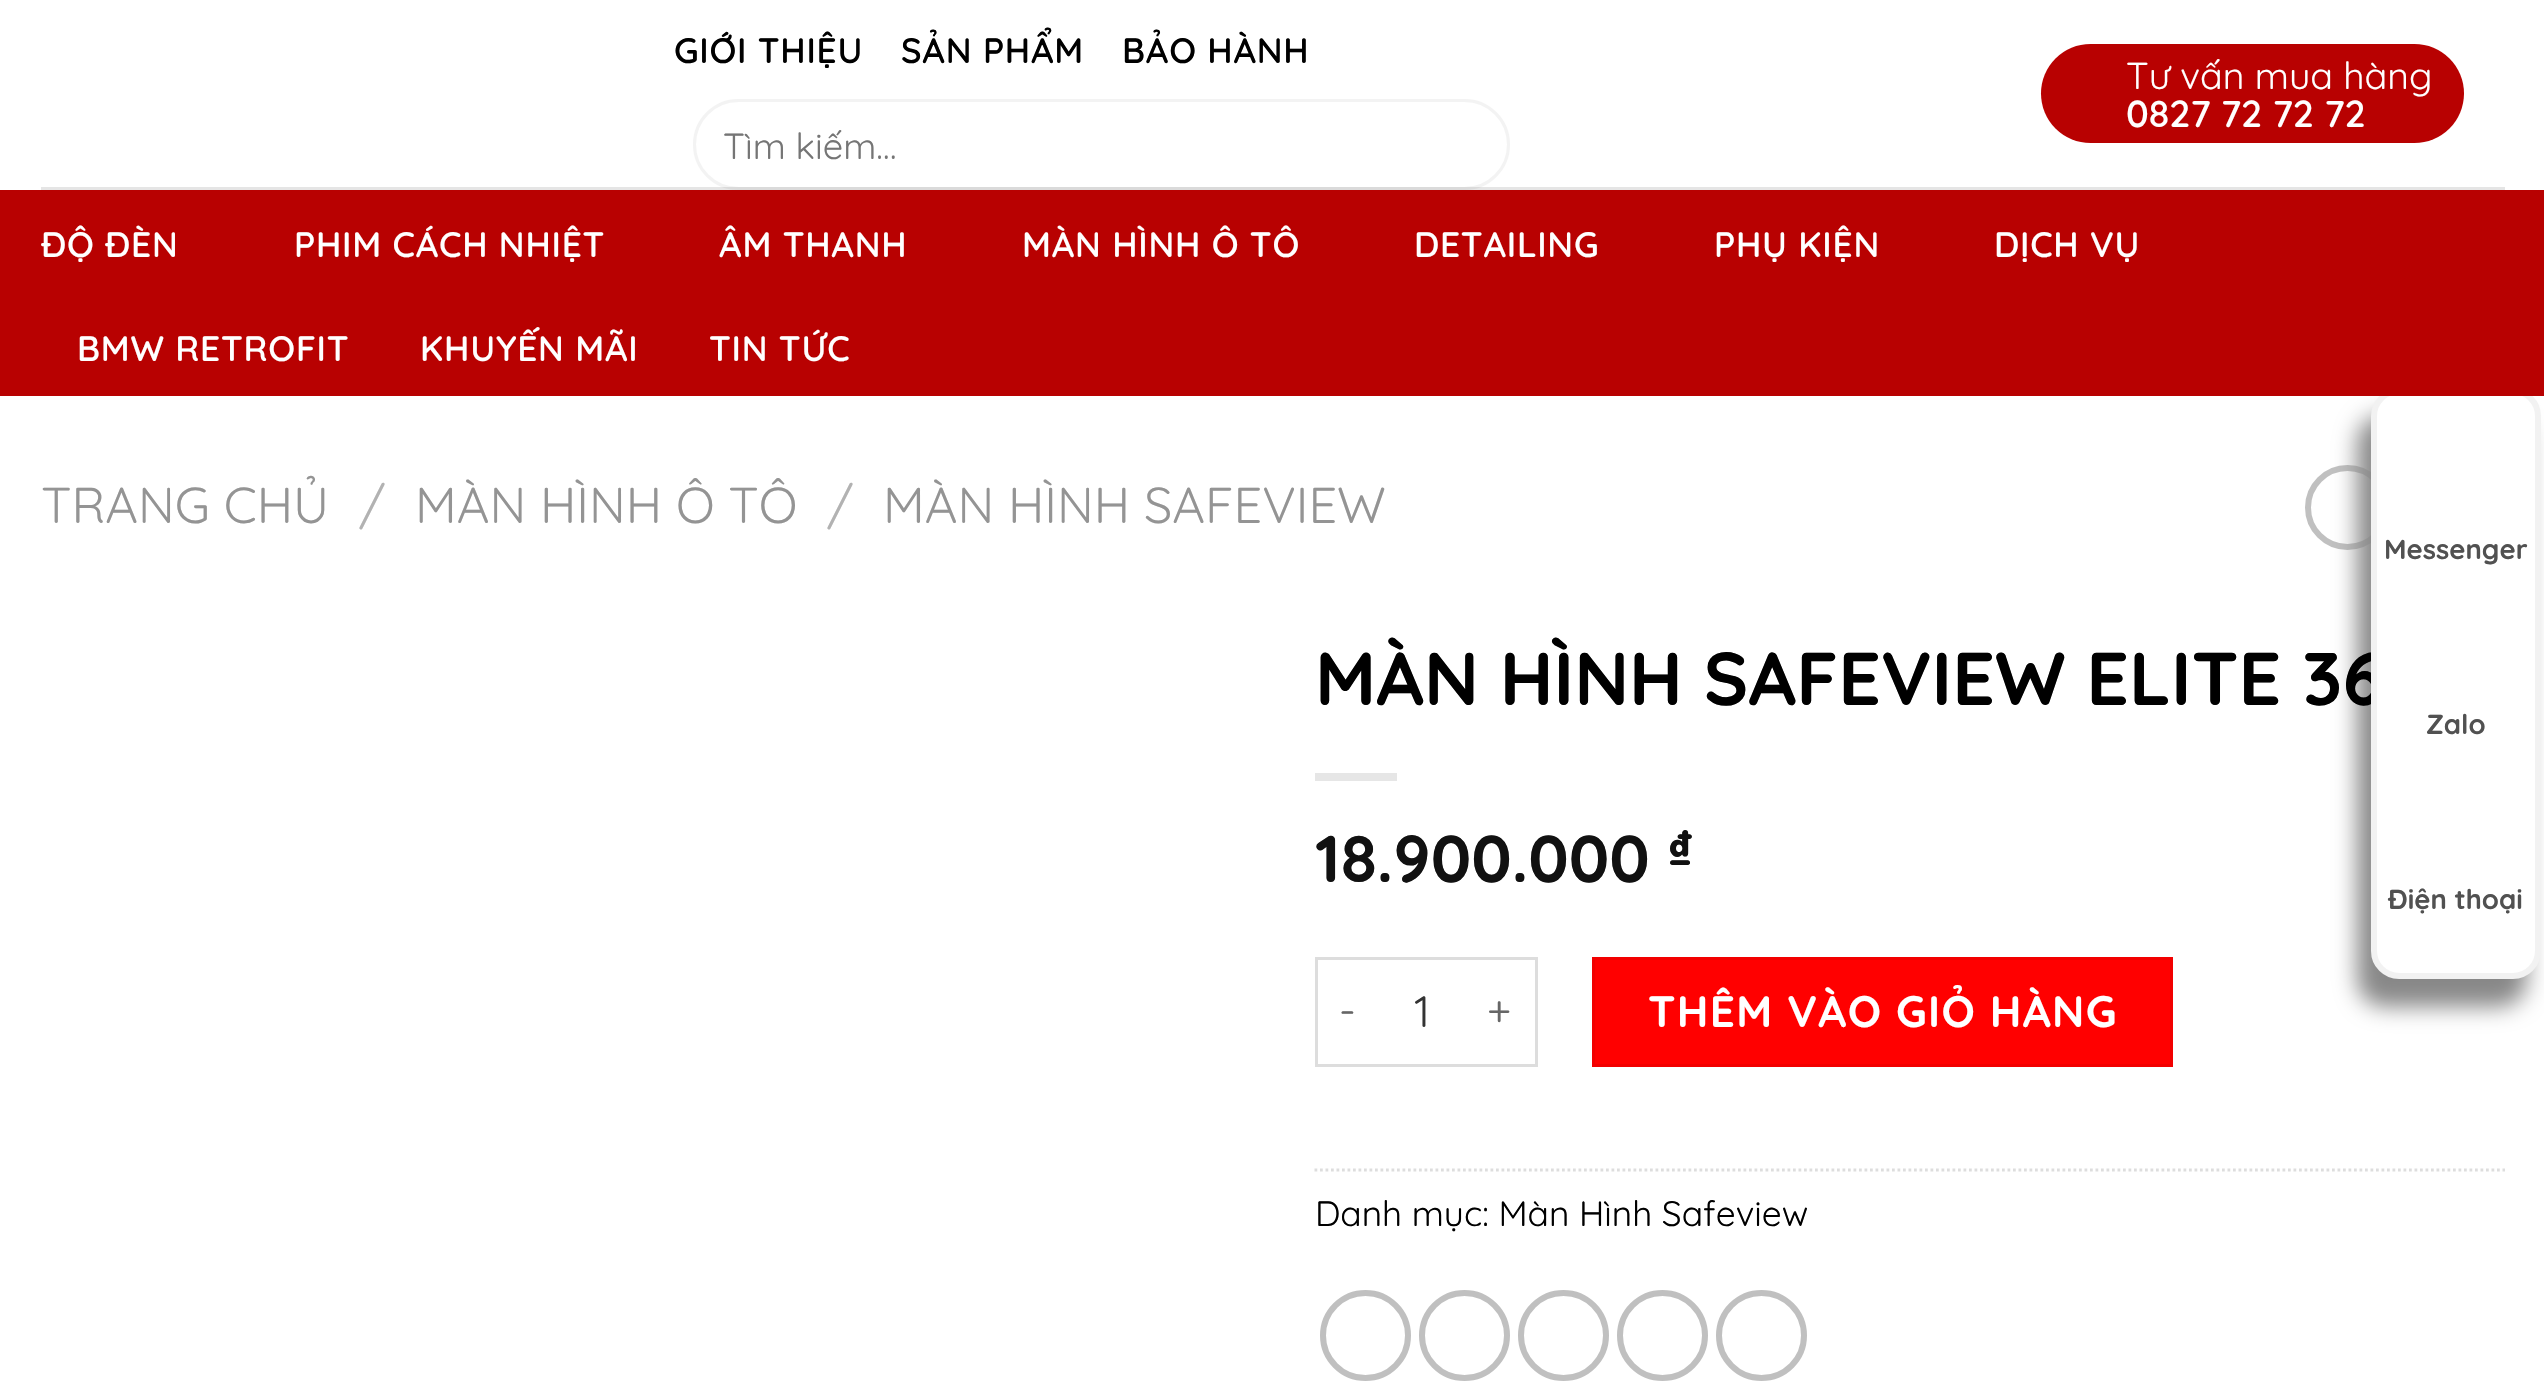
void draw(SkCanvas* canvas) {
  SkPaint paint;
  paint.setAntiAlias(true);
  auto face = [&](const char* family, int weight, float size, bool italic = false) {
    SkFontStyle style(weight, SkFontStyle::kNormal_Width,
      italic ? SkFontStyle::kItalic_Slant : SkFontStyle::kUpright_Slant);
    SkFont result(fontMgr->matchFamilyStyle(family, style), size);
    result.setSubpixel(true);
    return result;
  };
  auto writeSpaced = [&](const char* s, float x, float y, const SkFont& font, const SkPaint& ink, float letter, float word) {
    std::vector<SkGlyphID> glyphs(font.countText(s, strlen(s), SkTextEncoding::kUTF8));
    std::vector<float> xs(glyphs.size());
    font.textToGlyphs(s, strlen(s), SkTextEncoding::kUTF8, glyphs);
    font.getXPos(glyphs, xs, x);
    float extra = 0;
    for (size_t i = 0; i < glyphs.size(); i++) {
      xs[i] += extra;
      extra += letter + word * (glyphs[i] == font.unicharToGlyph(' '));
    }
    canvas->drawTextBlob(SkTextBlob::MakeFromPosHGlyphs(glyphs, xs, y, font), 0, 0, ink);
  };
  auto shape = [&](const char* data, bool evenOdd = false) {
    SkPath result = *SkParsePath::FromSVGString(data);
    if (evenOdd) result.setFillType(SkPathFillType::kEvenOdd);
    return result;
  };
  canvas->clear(0xffffffff);
  paint.setStroke(true);
  paint.setStrokeWidth(3);
  paint.setColor(0xfff3f3f3);
  canvas->drawRoundRect(SkRect::MakeXYWH(694.5f, 100.5f, 814, 88), 44, 44, paint);
  paint.setStroke(false);
  paint.setColor(0xffb80101);
  canvas->drawRoundRect(SkRect::MakeXYWH(2041, 44, 423, 99), 49.5f, 49.5f, paint);
  paint.setColor(0x1a000000);
  canvas->drawRect(SkRect::MakeXYWH(41, 187, 2464, 3), paint);
  paint.setStroke(true);
  paint.setStrokeWidth(6);
  paint.setColor(0xffc0c0c0);
  canvas->drawCircle(2347.5f, 507.5f, 39.5f, paint);
  paint.setStroke(false);
  {
    const struct { float x, y, w, h; SkColor color; } items[] = {
      {1315, 773, 82, 8, 0xffe6e6e6},
      {1315, 957, 222, 3, 0xffdddddd},
      {1315, 1064, 151, 3, 0xffdddddd},
      {1315, 957, 3, 110, 0xffdddddd},
      {1535, 957, 3, 110, 0xffdddddd},
      {1466, 1064, 71, 3, 0xffdddddd},
    };
    for (auto [x, y, w, h, color] : items) {
      paint.setColor(color);
      canvas->drawRect(SkRect::MakeXYWH(x, y, w, h), paint);
    }
  }
  paint.setColor(0xffff0000);
  canvas->drawRect(SkRect::MakeXYWH(1593.5f, 958.5f, 578, 107), paint);
  paint.setStroke(true);
  paint.setStrokeWidth(3);
  paint.setColor(0xfff20000);
  canvas->drawRect(SkRect::MakeXYWH(1593.5f, 958.5f, 578, 107), paint);
  paint.setStrokeWidth(2.8f);
  paint.setColor(0xffdddddd);
  paint.setPathEffect(SkDashPathEffect::Make({{2.75f, 2.75f}}, 0));
  canvas->drawPath(shape("M1314.5 1170H2505"), paint);
  paint.setPathEffect(nullptr);
  paint.setStrokeWidth(6);
  paint.setColor(0xffc0c0c0);
  canvas->drawCircle(1365.5f, 1335.5f, 42.5f, paint);
  canvas->drawCircle(1464.5f, 1335.5f, 42.5f, paint);
  canvas->drawCircle(1563.5f, 1335.5f, 42.5f, paint);
  canvas->drawCircle(1662.5f, 1335.5f, 42.5f, paint);
  canvas->drawCircle(1761.5f, 1335.5f, 42.5f, paint);
  paint.setStroke(false);
  paint.setColor(0xff888888);
  paint.setMaskFilter(SkMaskFilter::MakeBlur(kNormal_SkBlurStyle, 11));
  canvas->drawRoundRect(SkRect::MakeXYWH(2357, 415, 170, 592), 28, 28, paint);
  paint.setMaskFilter(nullptr);
  auto f0 = face("Quicksand", 600, 35.25f);
  paint.setColor(0xff000000);
  {
    const struct { const char* s; float x, y; } items[] = {
      {"GIỚI THIỆU", 674, 63},
      {"SẢN PHẨM", 901, 63},
      {"BẢO HÀNH", 1122, 63},
    };
    for (auto [s, x, y] : items) {
      writeSpaced(s, x, y, f0, paint, 0.75f, 0);
    }
  }
  auto f1 = face("Quicksand", 400, 36.25f);
  paint.setColor(0xff757575);
  canvas->drawString("Tìm kiếm…", 723, 159, f1, paint);
  auto f2 = face("Quicksand", 400, 37.5f);
  paint.setColor(0xffffffff);
  canvas->drawString("Tư vấn mua hàng", 2126, 89, f2, paint);
  auto f3 = face("Quicksand", 600, 37.5f);
  canvas->drawString("0827 72 72 72", 2126, 127, f3, paint);
  auto f4 = face("Quicksand", 400, 50.5f);
  paint.setColor(0xff949494);
  canvas->drawString("TRANG CHỦ", 41, 523, f4, paint);
  paint.setColor(0xffb2b2b2);
  canvas->drawString("/", 359, 523, f4, paint);
  paint.setColor(0xff949494);
  canvas->drawString("MÀN HÌNH Ô TÔ", 415, 523, f4, paint);
  paint.setColor(0xffb2b2b2);
  canvas->drawString("/", 827, 523, f4, paint);
  paint.setColor(0xff949494);
  canvas->drawString("MÀN HÌNH SAFEVIEW", 883, 523, f4, paint);
  auto f5 = face("Quicksand", 700, 74.75f);
  paint.setColor(0xff000000);
  canvas->drawString("MÀN HÌNH SAFEVIEW ELITE 36", 1315, 705, f5, paint);
  auto f6 = face("Quicksand", 700, 66);
  paint.setColor(0xff111111);
  canvas->drawString("18.900.000", 1315, 882, f6, paint);
  auto f7 = face("Quicksand", 700, 50);
  canvas->drawString("₫", 1668, 865, f7, paint);
  auto f8 = face("Quicksand", 400, 43);
  paint.setColor(0xff666666);
  writeSpaced("-", 1339, 1026, f8, paint, 1, 0);
  auto f9 = face("Quicksand", 400, 44);
  paint.setColor(0xff333333);
  canvas->drawString("1", 1414, 1027, f9, paint);
  paint.setColor(0xff666666);
  writeSpaced("+", 1487, 1026, f8, paint, 1, 0);
  auto f10 = face("Quicksand", 700, 44);
  paint.setColor(0xffffffff);
  writeSpaced("THÊM VÀO GIỎ HÀNG", 1648, 1027, f10, paint, 1.3f, 0);
  auto f11 = face("Quicksand", 400, 35.25f);
  paint.setColor(0xff000000);
  canvas->drawString("Danh mục: Màn Hình Safeview", 1315, 1226, f11, paint);
  paint.setColor(0xffffffff);
  canvas->drawRoundRect(SkRect::MakeXYWH(2374, 391, 164, 585), 25, 25, paint);
  paint.setStroke(true);
  paint.setColor(0xfff2f2f2);
  canvas->drawRoundRect(SkRect::MakeXYWH(2374, 391, 164, 585), 25, 25, paint);
  paint.setStroke(false);
  paint.setColor(0xffb80101);
  canvas->drawRect(SkRect::MakeXYWH(0, 190, 2544, 206), paint);
  paint.setColor(0xffffffff);
  {
    const struct { const char* s; float x, y; } items[] = {
      {"TIN TỨC", 709, 361},
      {"KHUYẾN MÃI", 420, 361},
      {"BMW RETROFIT", 77, 361},
      {"DỊCH VỤ", 1994, 257},
      {"PHỤ KIỆN", 1714, 257},
      {"DETAILING", 1414, 257},
      {"MÀN HÌNH Ô TÔ", 1022, 257},
      {"ÂM THANH", 719, 257},
      {"PHIM CÁCH NHIỆT", 294, 257},
      {"ĐỘ ĐÈN", 41, 257},
    };
    for (auto [s, x, y] : items) {
      writeSpaced(s, x, y, f0, paint, 0.75f, 0);
    }
  }
  auto f12 = face("Quicksand", 700, 27.5f);
  paint.setColor(0xff515151);
  {
    const struct { const char* s; float x, y; } items[] = {
      {"Messenger", 2384, 559},
      {"Zalo", 2426, 734},
      {"Điện thoại", 2388, 909},
    };
    for (auto [s, x, y] : items) {
      canvas->drawString(s, x, y, f12, paint);
    }
  }
}
